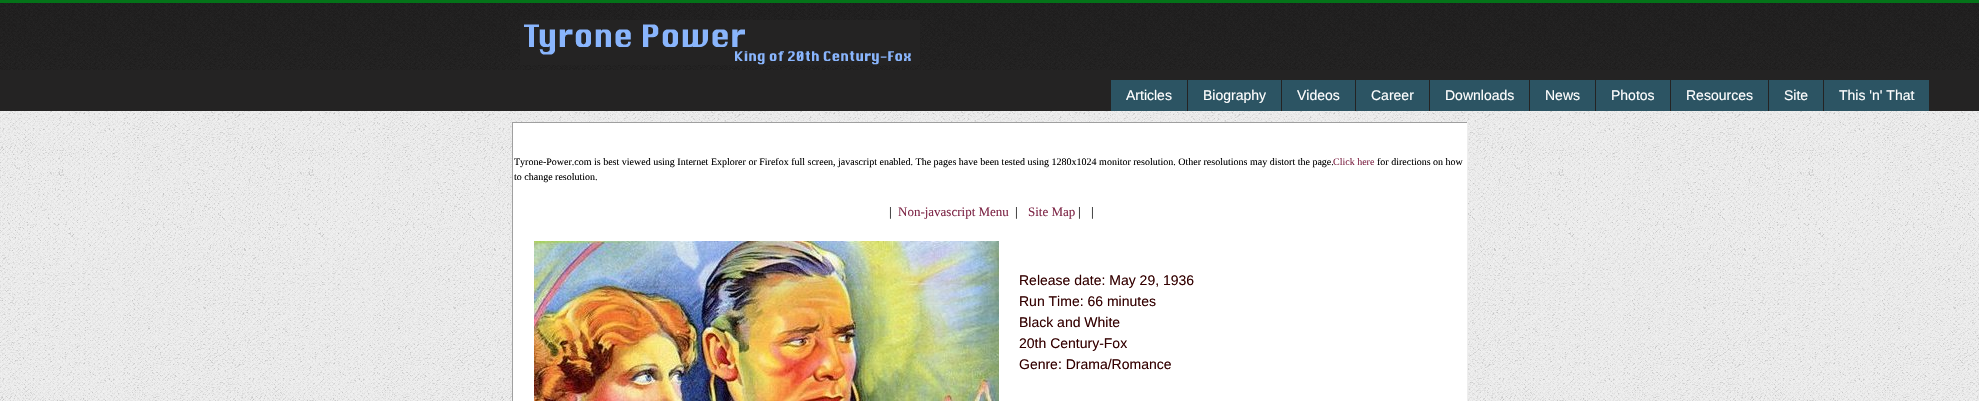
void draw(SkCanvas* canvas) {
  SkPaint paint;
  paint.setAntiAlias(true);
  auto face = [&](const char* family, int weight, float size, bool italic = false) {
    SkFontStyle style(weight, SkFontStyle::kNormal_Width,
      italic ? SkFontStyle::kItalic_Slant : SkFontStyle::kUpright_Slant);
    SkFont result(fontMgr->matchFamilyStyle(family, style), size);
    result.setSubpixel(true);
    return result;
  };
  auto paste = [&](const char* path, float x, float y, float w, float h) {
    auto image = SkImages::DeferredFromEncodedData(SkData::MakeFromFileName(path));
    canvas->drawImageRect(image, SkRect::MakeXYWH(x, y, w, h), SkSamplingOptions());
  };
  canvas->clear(0xffffffff);
  paste("img/1.png", 0, 111, 1979, 290);
  {
    const struct { float x, y, w, h; SkColor color; } items[] = {
      {513, 123, 954, 278, 0xffffffff},
      {512, 122, 956, 1, 0xff9f9f9f},
      {1467, 122, 1, 279, 0xffeeeeee},
      {512, 122, 1, 279, 0xff9f9f9f},
    };
    for (auto [x, y, w, h, color] : items) {
      paint.setColor(color);
      canvas->drawRect(SkRect::MakeXYWH(x, y, w, h), paint);
    }
  }
  paste("img/2.png", 0, 0, 1979, 70);
  paste("img/3.png", 520, 20, 400, 45);
  {
    const struct { float x, y, w, h; SkColor color; } items[] = {
      {0, 70, 1979, 41, 0xff242323},
      {1111, 80, 76, 31, 0xff2c5463},
      {1188, 80, 93, 31, 0xff2c5463},
      {1282, 80, 73, 31, 0xff2c5463},
      {1356, 80, 73, 31, 0xff2c5463},
      {1430, 80, 99, 31, 0xff2c5463},
      {1530, 80, 65, 31, 0xff2c5463},
      {1596, 80, 74, 31, 0xff2c5463},
      {1671, 80, 97, 31, 0xff2c5463},
      {1769, 80, 54, 31, 0xff2c5463},
      {1824, 80, 105, 31, 0xff2c5463},
    };
    for (auto [x, y, w, h, color] : items) {
      paint.setColor(color);
      canvas->drawRect(SkRect::MakeXYWH(x, y, w, h), paint);
    }
  }
  paste("img/4.png", 534, 241, 465, 160);
  auto f0 = face("Liberation Sans", 400, 14);
  paint.setColor(0xffffffff);
  {
    const struct { const char* s; float x, y; } items[] = {
      {"Articles", 1126, 100},
      {"Biography", 1203, 100},
      {"Videos", 1297, 100},
      {"Career", 1371, 100},
      {"Downloads", 1445, 100},
      {"News", 1545, 100},
      {"Photos", 1611, 100},
      {"Resources", 1686, 100},
      {"Site", 1784, 100},
      {"This 'n' That", 1839, 100},
    };
    for (auto [s, x, y] : items) {
      canvas->drawString(s, x, y, f0, paint);
    }
  }
  auto f1 = face("Liberation Serif", 400, 10);
  paint.setColor(0xff000000);
  canvas->drawString("Tyrone-Power.com is best viewed using Internet Explorer or Firefox full screen, javascript enabled. The pages have been tested using 1280x1024 monitor resolution. Other resolutions may distort the page.", 514, 165, f1, paint);
  paint.setColor(0xff7f2949);
  canvas->drawString("Click here", 1333, 165, f1, paint);
  paint.setColor(0xff000000);
  canvas->drawString("for directions on how", 1377, 165, f1, paint);
  canvas->drawString("to change resolution.", 514, 180, f1, paint);
  auto f2 = face("Liberation Serif", 400, 13);
  canvas->drawString("|", 889, 216, f2, paint);
  paint.setColor(0xff7f2949);
  canvas->drawString("Non-javascript Menu", 898, 216, f2, paint);
  paint.setColor(0xff000000);
  canvas->drawString("|", 1015, 216, f2, paint);
  paint.setColor(0xff7f2949);
  canvas->drawString("Site Map", 1028, 216, f2, paint);
  paint.setColor(0xff000000);
  canvas->drawString("|", 1078, 216, f2, paint);
  canvas->drawString("|", 1091, 216, f2, paint);
  paint.setColor(0xff330000);
  {
    const struct { const char* s; float x, y; } items[] = {
      {"Release date: May 29, 1936", 1019, 285},
      {"Run Time: 66 minutes", 1019, 306},
      {"Black and White", 1019, 327},
      {"20th Century-Fox", 1019, 348},
      {"Genre: Drama/Romance", 1019, 369},
    };
    for (auto [s, x, y] : items) {
      canvas->drawString(s, x, y, f0, paint);
    }
  }
}
